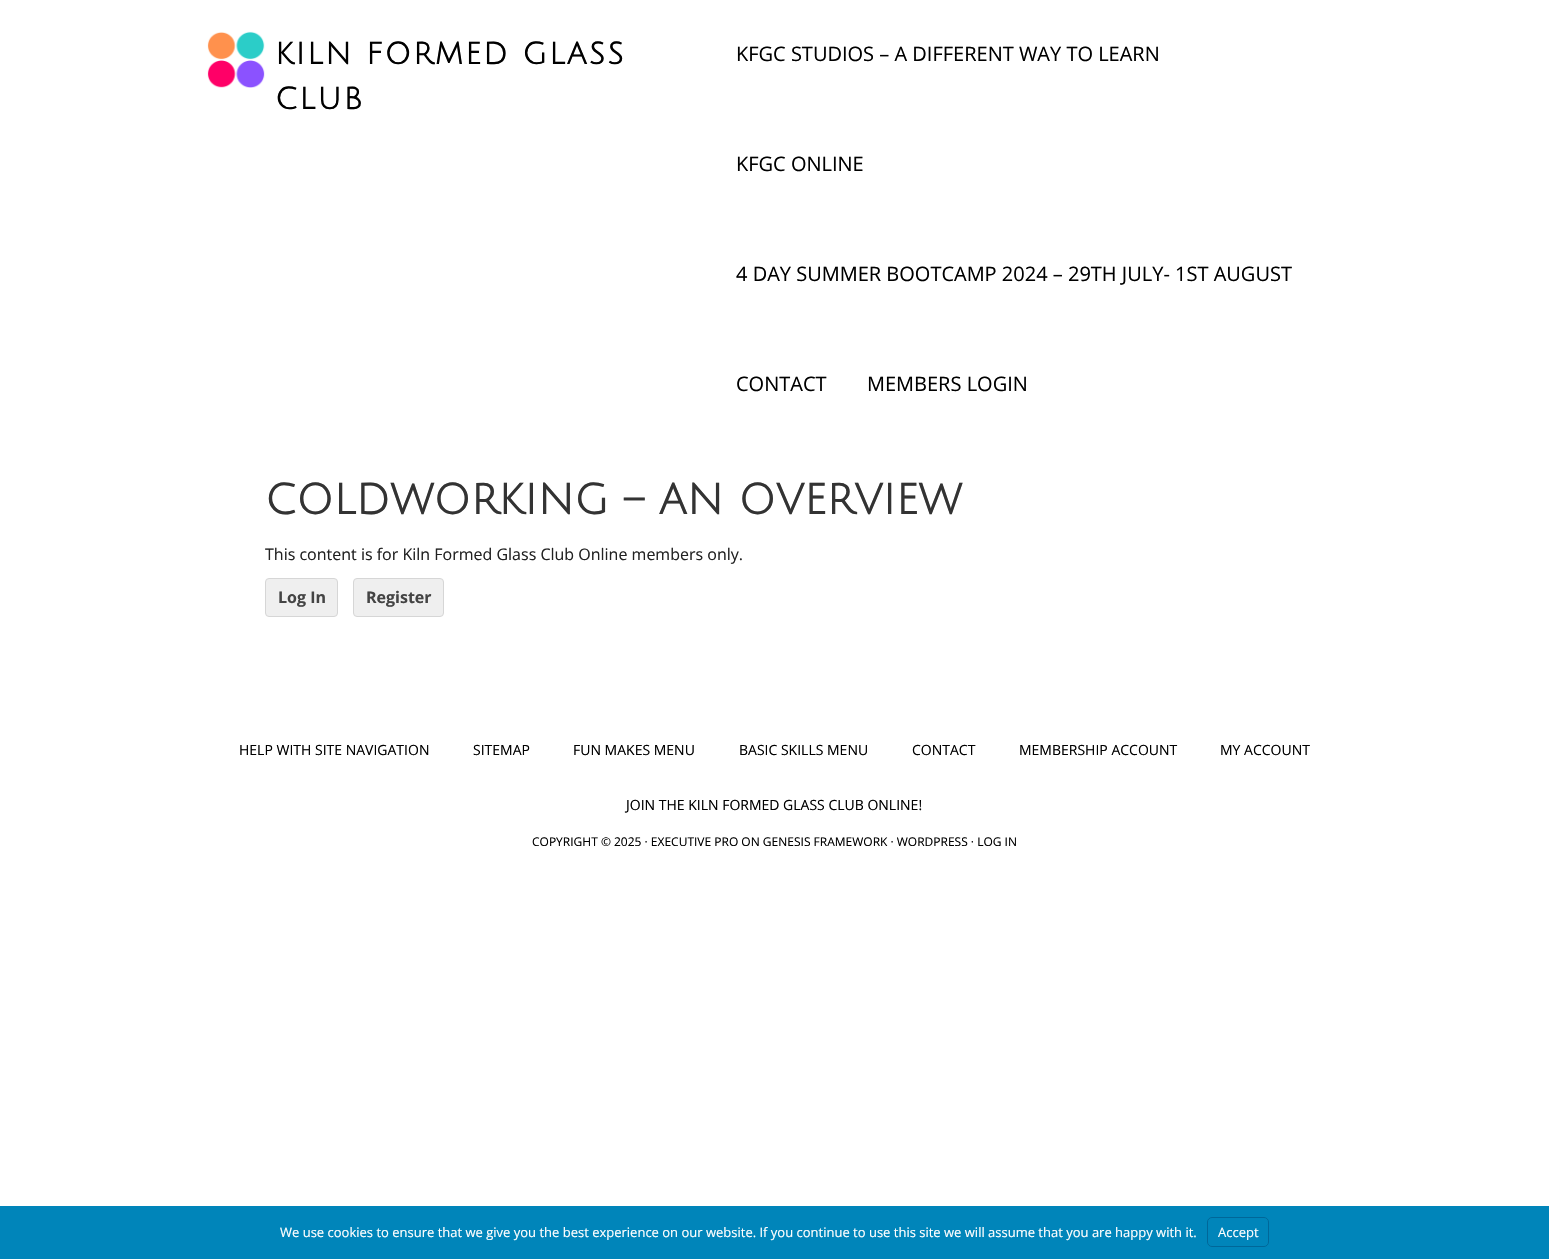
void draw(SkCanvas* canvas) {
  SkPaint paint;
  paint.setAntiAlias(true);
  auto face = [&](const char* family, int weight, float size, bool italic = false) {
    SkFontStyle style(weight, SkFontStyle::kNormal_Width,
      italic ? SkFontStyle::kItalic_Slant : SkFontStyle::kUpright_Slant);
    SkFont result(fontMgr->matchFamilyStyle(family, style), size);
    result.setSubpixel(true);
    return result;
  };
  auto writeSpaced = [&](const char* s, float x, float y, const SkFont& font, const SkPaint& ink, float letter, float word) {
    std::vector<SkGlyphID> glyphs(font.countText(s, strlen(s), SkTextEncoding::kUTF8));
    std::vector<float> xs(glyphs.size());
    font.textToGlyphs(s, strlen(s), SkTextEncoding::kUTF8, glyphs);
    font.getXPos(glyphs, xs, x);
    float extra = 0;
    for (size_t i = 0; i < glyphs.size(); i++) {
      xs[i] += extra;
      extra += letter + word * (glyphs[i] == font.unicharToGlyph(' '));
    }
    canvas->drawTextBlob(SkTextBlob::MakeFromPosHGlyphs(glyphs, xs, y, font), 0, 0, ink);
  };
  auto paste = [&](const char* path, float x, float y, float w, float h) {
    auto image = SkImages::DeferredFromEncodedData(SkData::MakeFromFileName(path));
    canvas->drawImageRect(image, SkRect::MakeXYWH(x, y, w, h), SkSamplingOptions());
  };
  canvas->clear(0xffffffff);
  paste("img/1.png", 207, 31, 58, 57);
  paint.setColor(0xffefefef);
  canvas->drawRoundRect(SkRect::MakeXYWH(265.5f, 578.5f, 72, 38), 3.5f, 3.5f, paint);
  paint.setStroke(true);
  paint.setStrokeWidth(1);
  paint.setColor(0xffd6d6d6);
  canvas->drawRoundRect(SkRect::MakeXYWH(265.5f, 578.5f, 72, 38), 3.5f, 3.5f, paint);
  paint.setStroke(false);
  paint.setColor(0xffefefef);
  canvas->drawRoundRect(SkRect::MakeXYWH(353.5f, 578.5f, 90, 38), 3.5f, 3.5f, paint);
  paint.setStroke(true);
  paint.setColor(0xffd6d6d6);
  canvas->drawRoundRect(SkRect::MakeXYWH(353.5f, 578.5f, 90, 38), 3.5f, 3.5f, paint);
  paint.setStroke(false);
  paint.setColor(0xff0085ba);
  canvas->drawRect(SkRect::MakeXYWH(0, 1206, 1549, 53), paint);
  paint.setStroke(true);
  paint.setColor(0xff006799);
  canvas->drawRoundRect(SkRect::MakeXYWH(1207.5f, 1217.5f, 61, 29), 4.5f, 4.5f, paint);
  auto f0 = face("Julius Sans One", 700, 30);
  paint.setStroke(false);
  paint.setColor(0xff000000);
  writeSpaced("KILN FORMED GLASS", 275, 64, f0, paint, 2, 0);
  writeSpaced("CLUB", 275, 109, f0, paint, 2, 0);
  auto f1 = face("Open Sans", 400, 20);
  {
    const struct { const char* s; float x, y; } items[] = {
      {"KFGC STUDIOS – A DIFFERENT WAY TO LEARN", 736, 61},
      {"KFGC ONLINE", 736, 171},
      {"4 DAY SUMMER BOOTCAMP 2024 – 29TH JULY- 1ST AUGUST", 736, 281},
      {"CONTACT", 736, 391},
      {"MEMBERS LOGIN", 867, 391},
    };
    for (auto [s, x, y] : items) {
      canvas->drawString(s, x, y, f1, paint);
    }
  }
  auto f2 = face("Julius Sans One", 700, 42);
  paint.setColor(0xff333333);
  canvas->drawString("COLDWORKING – AN OVERVIEW", 265, 514, f2, paint);
  auto f3 = face("Open Sans", 400, 16);
  paint.setColor(0xff222222);
  canvas->drawString("This content is for Kiln Formed Glass Club Online members only.", 265, 560, f3, paint);
  auto f4 = face("Open Sans", 700, 16);
  paint.setColor(0xff444444);
  canvas->drawString("Log In", 278, 603, f4, paint);
  canvas->drawString("Register", 366, 603, f4, paint);
  auto f5 = face("Open Sans", 400, 14);
  paint.setColor(0xff000000);
  {
    const struct { const char* s; float x, y; } items[] = {
      {"HELP WITH SITE NAVIGATION", 239, 755},
      {"SITEMAP", 473, 755},
      {"FUN MAKES MENU", 573, 755},
      {"BASIC SKILLS MENU", 739, 755},
      {"CONTACT", 912, 755},
      {"MEMBERSHIP ACCOUNT", 1019, 755},
      {"MY ACCOUNT", 1220, 755},
      {"JOIN THE KILN FORMED GLASS CLUB ONLINE!", 626, 810},
    };
    for (auto [s, x, y] : items) {
      canvas->drawString(s, x, y, f5, paint);
    }
  }
  auto f6 = face("Open Sans", 400, 12);
  canvas->drawString("COPYRIGHT © 2025 · EXECUTIVE PRO ON GENESIS FRAMEWORK · WORDPRESS · LOG IN", 532, 846, f6, paint);
  auto f7 = face("Open Sans", 400, 13);
  paint.setColor(0xffffffff);
  canvas->drawString("We use cookies to ensure that we give you the best experience on our website. If you continue to use this site we will assume that you are happy with it.", 280, 1237, f7, paint);
  canvas->drawString("Accept", 1218, 1237, f7, paint);
}
